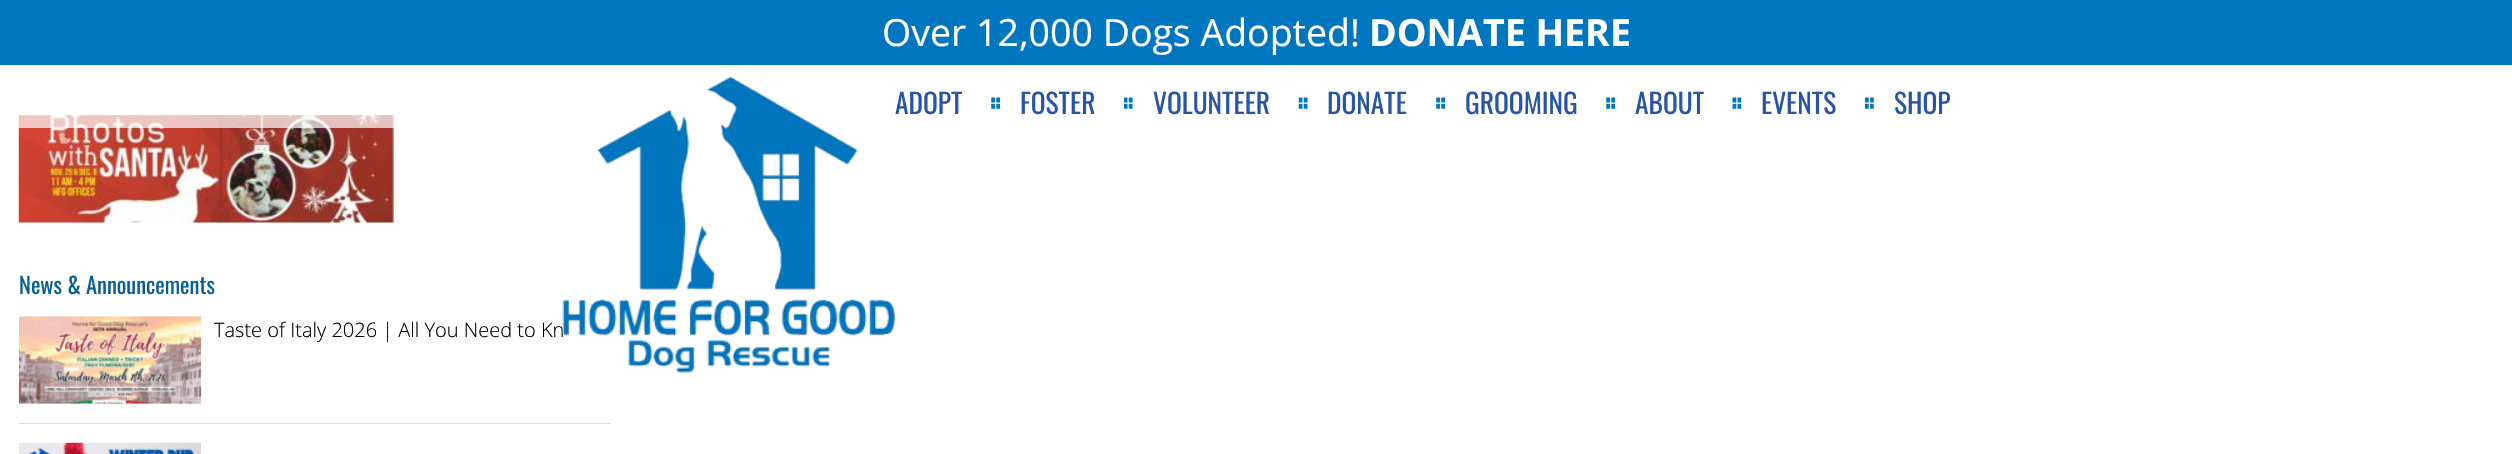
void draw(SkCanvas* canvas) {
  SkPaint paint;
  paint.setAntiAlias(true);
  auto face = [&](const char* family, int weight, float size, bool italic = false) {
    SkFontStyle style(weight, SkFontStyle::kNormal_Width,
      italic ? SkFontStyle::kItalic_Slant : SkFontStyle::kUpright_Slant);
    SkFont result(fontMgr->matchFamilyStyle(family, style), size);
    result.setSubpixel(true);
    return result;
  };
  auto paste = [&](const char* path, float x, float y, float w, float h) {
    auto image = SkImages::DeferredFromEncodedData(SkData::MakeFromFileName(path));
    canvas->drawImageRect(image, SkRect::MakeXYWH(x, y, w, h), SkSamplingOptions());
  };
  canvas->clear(0xffffffff);
  paint.setColor(0xff0076be);
  canvas->drawRect(SkRect::MakeXYWH(0, 0, 2512, 65), paint);
  paste("img/7.png", 18, 115, 376, 108);
  paint.setColor(0xb3ffffff);
  canvas->drawRect(SkRect::MakeXYWH(18, 115, 376, 13), paint);
  paste("img/2.png", 991, 97, 9, 12);
  paste("img/3.png", 1124, 97, 9, 12);
  paste("img/4.png", 1298, 97, 10, 12);
  paste("img/2.png", 1436, 97, 9, 12);
  paste("img/2.png", 1606, 97, 9, 12);
  paste("img/5.png", 1732, 97, 10, 12);
  paste("img/6.png", 1865, 97, 9, 12);
  paint.setColor(0xffdddddd);
  canvas->drawRect(SkRect::MakeXYWH(19, 423, 591, 1), paint);
  paint.setColor(0xfff1f1f1);
  canvas->drawRect(SkRect::MakeXYWH(19, 316, 182, 88), paint);
  paste("img/8.png", 18, 316, 184, 88);
  paste("img/9.png", 19, 442, 182, 12);
  auto f0 = face("Open Sans", 400, 37.5f);
  paint.setColor(0xffffffff);
  canvas->drawString("Over 12,000 Dogs Adopted!", 882, 46, f0, paint);
  auto f1 = face("Open Sans", 700, 37.5f);
  canvas->drawString("DONATE HERE", 1369, 46, f1, paint);
  auto f2 = face("Oswald", 400, 27.5f);
  paint.setColor(0xff2955a6);
  {
    const struct { const char* s; float x, y; } items[] = {
      {"ADOPT", 895, 114},
      {"FOSTER", 1020, 114},
      {"VOLUNTEER", 1153, 114},
      {"DONATE", 1327, 114},
      {"GROOMING", 1465, 114},
      {"ABOUT", 1635, 114},
      {"EVENTS", 1761, 114},
      {"SHOP", 1894, 114},
    };
    for (auto [s, x, y] : items) {
      canvas->drawString(s, x, y, f2, paint);
    }
  }
  auto f3 = face("Oswald", 400, 22.5f);
  paint.setColor(0xff056097);
  canvas->drawString("News & Announcements", 19, 294, f3, paint);
  auto f4 = face("Open Sans", 300, 20);
  paint.setColor(0xff000000);
  canvas->drawString("Taste of Italy 2026 | All You Need to Kn", 214, 337, f4, paint);
  paste("img/1.png", 562, 76, 334, 297);
}
